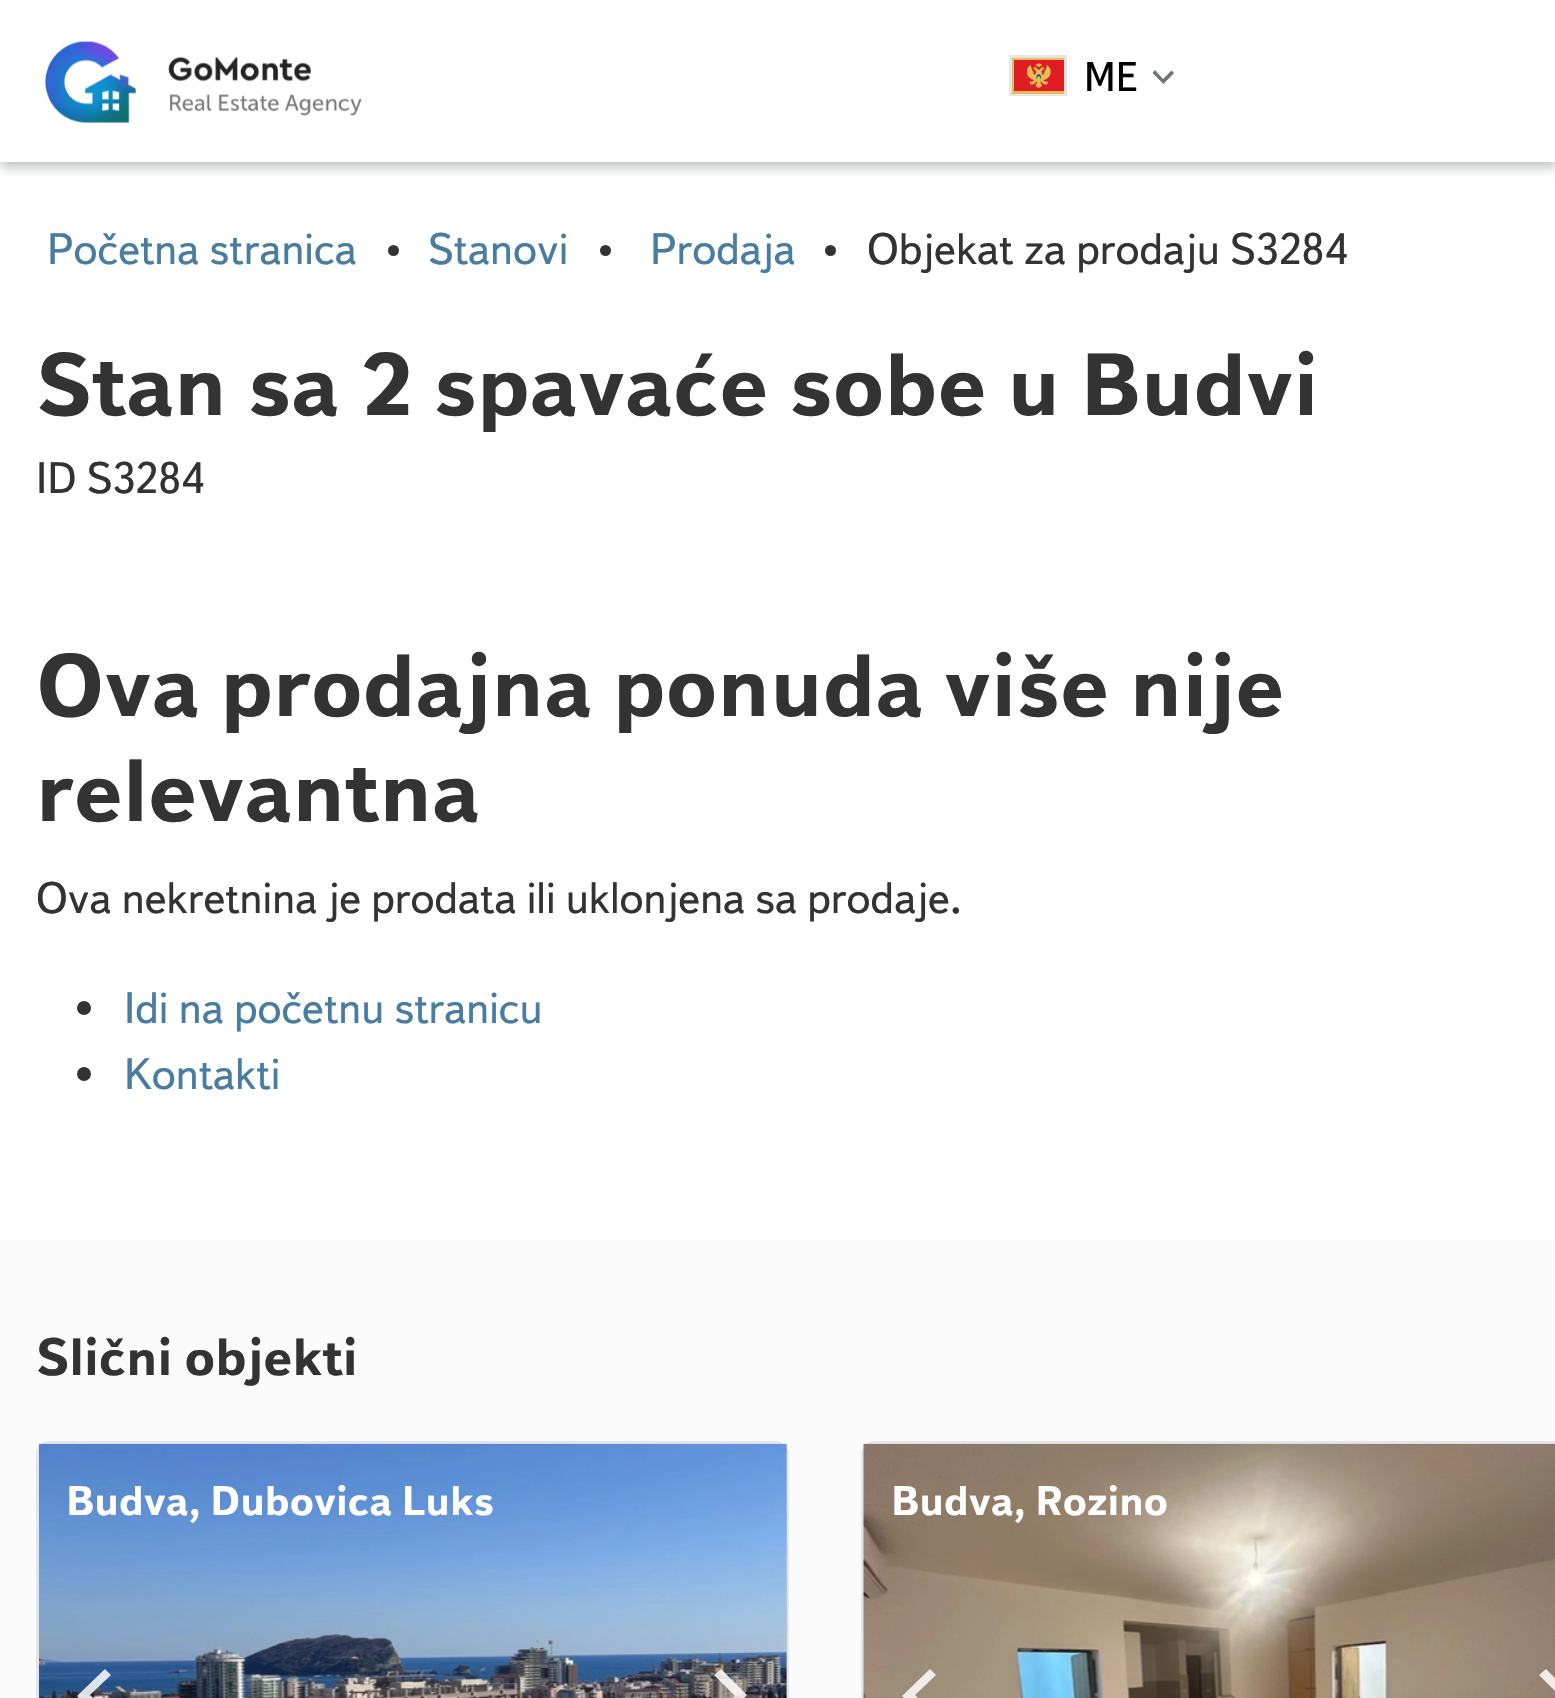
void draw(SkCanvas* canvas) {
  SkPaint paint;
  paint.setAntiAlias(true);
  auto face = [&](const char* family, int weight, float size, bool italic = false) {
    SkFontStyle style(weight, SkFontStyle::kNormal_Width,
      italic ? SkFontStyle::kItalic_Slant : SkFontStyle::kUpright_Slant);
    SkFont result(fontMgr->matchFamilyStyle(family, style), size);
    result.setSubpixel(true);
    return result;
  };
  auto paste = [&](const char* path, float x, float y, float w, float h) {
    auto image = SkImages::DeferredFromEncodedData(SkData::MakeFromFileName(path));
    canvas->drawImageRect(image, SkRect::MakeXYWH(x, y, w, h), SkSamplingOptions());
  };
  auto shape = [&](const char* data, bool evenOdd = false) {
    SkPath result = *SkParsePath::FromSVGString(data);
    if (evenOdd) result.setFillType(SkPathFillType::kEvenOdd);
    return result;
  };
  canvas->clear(0xffffffff);
  canvas->save();
  canvas->clipRect(SkRect::MakeXYWH(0, 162, 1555, 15));
  paint.setColor(0x6b707475);
  paint.setMaskFilter(SkMaskFilter::MakeBlur(kNormal_SkBlurStyle, 5.5f));
  canvas->drawRect(SkRect::MakeXYWH(0, 6, 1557, 162), paint);
  paint.setMaskFilter(nullptr);
  canvas->restore();
  paste("img/1.png", 45, 41, 317, 82);
  paint.setStroke(true);
  paint.setStrokeWidth(3);
  paint.setColor(0xffe3e5ea);
  canvas->drawRect(SkRect::MakeXYWH(1010.5f, 56.5f, 55, 38), paint);
  paste("img/2.png", 1012, 58, 52, 36);
  paint.setStroke(false);
  paint.setColor(0xff707475);
  canvas->drawPath(shape("M1163.5 84L1174 73L1171.5 70.5L1163 79L1155 70L1152.5 73Z"), paint);
  paint.setColor(0xff333333);
  canvas->drawCircle(393.5f, 250.5f, 5.5f, paint);
  canvas->drawCircle(605.5f, 250.5f, 5.5f, paint);
  canvas->drawCircle(830.5f, 250.5f, 5.5f, paint);
  canvas->drawCircle(84, 1008, 7, paint);
  canvas->drawCircle(84, 1074, 7, paint);
  paint.setColor(0xfffbfbfb);
  canvas->drawRect(SkRect::MakeXYWH(0, 1240, 1555, 458), paint);
  paint.setStroke(true);
  paint.setColor(0xffe3e5ea);
  canvas->drawRoundRect(SkRect::MakeXYWH(37.5f, 1442.5f, 750, 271), 12.5f, 12.5f, paint);
  paint.setStroke(false);
  paint.setColor(0xffc4c4c4);
  canvas->drawRect(SkRect::MakeXYWH(786, 1444, 1, 254), paint);
  paste("img/3.png", 39, 1443, 748, 255);
  paint.setColor(0xd6ffffff);
  canvas->drawPath(shape("M77 1696L104 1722L111 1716L90 1695L111 1675L105 1669Z"), paint);
  canvas->drawPath(shape("M747 1695L721 1669L714 1675L735 1696L714 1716L720 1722Z"), paint);
  paint.setStroke(true);
  paint.setColor(0xffe3e5ea);
  canvas->drawRoundRect(SkRect::MakeXYWH(862.5f, 1442.5f, 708, 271), 12.5f, 12.5f, paint);
  paste("img/4.png", 863, 1443, 692, 255);
  paint.setStroke(false);
  paint.setColor(0xd6ffffff);
  canvas->drawPath(shape("M902 1696L929 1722L936 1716L915 1695L936 1675L930 1669Z"), paint);
  canvas->drawPath(shape("M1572 1695L1546 1669L1539 1675L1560 1696L1539 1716L1545 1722Z"), paint);
  auto f0 = face("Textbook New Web", 400, 41.25f);
  paint.setColor(0xff000000);
  canvas->drawString("ME", 1084, 91, f0, paint);
  auto f1 = face("Textbook New Web", 400, 44);
  paint.setColor(0xff487ca0);
  {
    const struct { const char* s; float x, y; } items[] = {
      {"Početna stranica", 47, 264},
      {"Stanovi", 428, 264},
      {"Prodaja", 650, 264},
    };
    for (auto [s, x, y] : items) {
      canvas->drawString(s, x, y, f1, paint);
    }
  }
  paint.setColor(0xff333333);
  canvas->drawString("Objekat za prodaju S3284", 867, 264, f1, paint);
  auto f2 = face("Textbook New Web", 700, 88);
  canvas->drawString("Stan sa 2 spavaće sobe u Budvi", 36, 415, f2, paint);
  canvas->drawString("ID S3284", 36, 493, f1, paint);
  canvas->drawString("Ova prodajna ponuda više nije", 36, 716, f2, paint);
  canvas->drawString("relevantna", 36, 821, f2, paint);
  canvas->drawString("Ova nekretnina je prodata ili uklonjena sa prodaje.", 36, 913, f1, paint);
  paint.setColor(0xff487ca0);
  canvas->drawString("Idi na početnu stranicu", 124, 1023, f1, paint);
  canvas->drawString("Kontakti", 124, 1089, f1, paint);
  auto f3 = face("Textbook New Web", 700, 52.25f);
  paint.setColor(0xff333333);
  canvas->drawString("Slični objekti", 36, 1375, f3, paint);
  auto f4 = face("Textbook New Web", 700, 41.25f);
  paint.setColor(0xffffffff);
  canvas->drawString("Budva, Dubovica Luks", 66, 1515, f4, paint);
  canvas->drawString("Budva, Rozino", 891, 1515, f4, paint);
}
